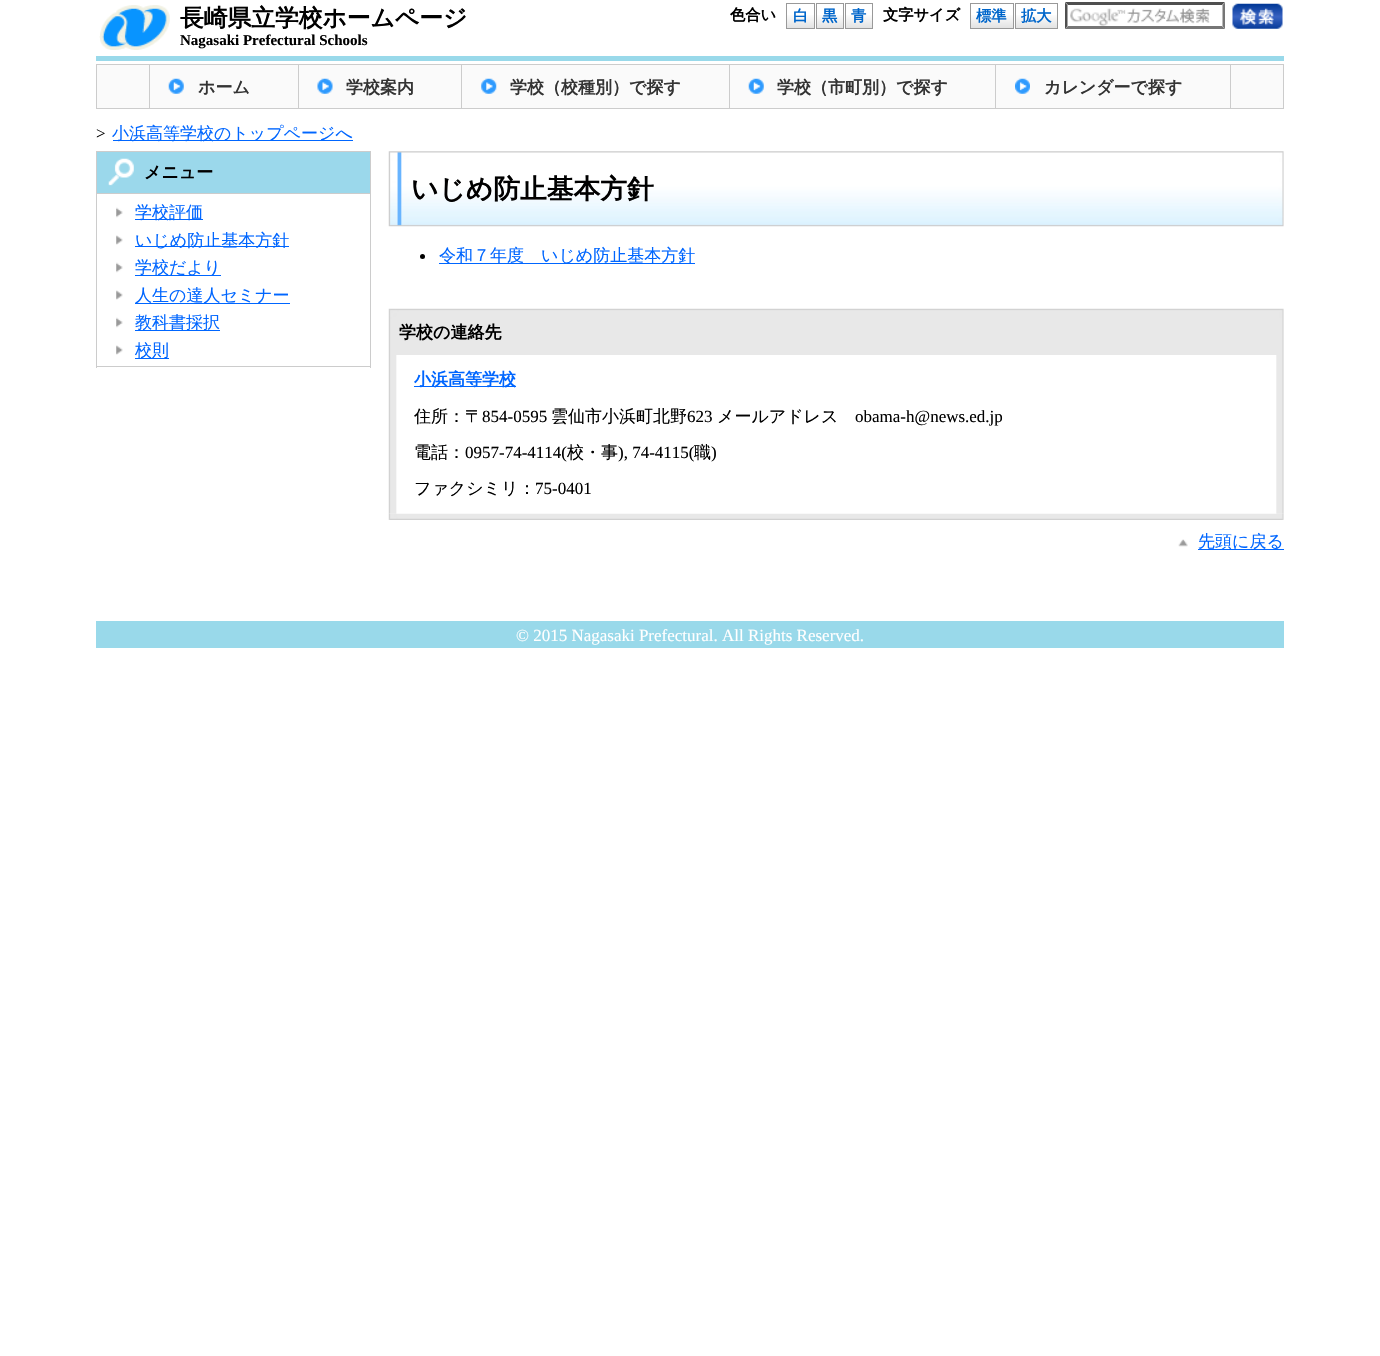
void draw(SkCanvas* canvas) {
  SkPaint paint;
  paint.setAntiAlias(true);
  auto face = [&](const char* family, int weight, float size, bool italic = false) {
    SkFontStyle style(weight, SkFontStyle::kNormal_Width,
      italic ? SkFontStyle::kItalic_Slant : SkFontStyle::kUpright_Slant);
    SkFont result(fontMgr->matchFamilyStyle(family, style), size);
    result.setSubpixel(true);
    return result;
  };
  auto paste = [&](const char* path, float x, float y, float w, float h) {
    auto image = SkImages::DeferredFromEncodedData(SkData::MakeFromFileName(path));
    canvas->drawImageRect(image, SkRect::MakeXYWH(x, y, w, h), SkSamplingOptions());
  };
  auto shape = [&](const char* data, bool evenOdd = false) {
    SkPath result = *SkParsePath::FromSVGString(data);
    if (evenOdd) result.setFillType(SkPathFillType::kEvenOdd);
    return result;
  };
  canvas->clear(0xffffffff);
  paint.setColor(0xff99d9ea);
  canvas->drawRect(SkRect::MakeXYWH(96, 56, 1188, 5), paint);
  paste("img/1.png", 99, 5, 71, 45);
  {
    const SkColor colors[] = {0xffffffff, 0xffe2e2e2};
    const float stops[] = {0.4f, 1};
    const SkPoint ends[] = {{801, 3.7f}, {801, 28}};
    paint.setShader(SkGradientShader::MakeLinear(ends, colors, stops, 2, SkTileMode::kClamp));
    paint.setAlpha(255);
  }
  canvas->drawRect(SkRect::MakeXYWH(787, 15, 27, 13), paint);
  paint.setStroke(true);
  paint.setStrokeWidth(1);
  paint.setShader(nullptr);
  paint.setColor(0xff999999);
  canvas->drawRect(SkRect::MakeXYWH(786.5f, 3.5f, 28, 25), paint);
  paint.setStroke(false);
  {
    const SkColor colors[] = {0xffffffff, 0xffe2e2e2};
    const float stops[] = {0.4f, 1};
    const SkPoint ends[] = {{830, 3.7f}, {830, 28}};
    paint.setShader(SkGradientShader::MakeLinear(ends, colors, stops, 2, SkTileMode::kClamp));
    paint.setAlpha(255);
  }
  canvas->drawRect(SkRect::MakeXYWH(817, 15, 26, 13), paint);
  paint.setStroke(true);
  paint.setShader(nullptr);
  paint.setColor(0xff999999);
  canvas->drawRect(SkRect::MakeXYWH(816.5f, 3.5f, 27, 25), paint);
  paint.setStroke(false);
  {
    const SkColor colors[] = {0xffffffff, 0xffe2e2e2};
    const float stops[] = {0.4f, 1};
    const SkPoint ends[] = {{859, 3.7f}, {859, 28}};
    paint.setShader(SkGradientShader::MakeLinear(ends, colors, stops, 2, SkTileMode::kClamp));
    paint.setAlpha(255);
  }
  canvas->drawRect(SkRect::MakeXYWH(846, 15, 26, 13), paint);
  paint.setStroke(true);
  paint.setShader(nullptr);
  paint.setColor(0xff999999);
  canvas->drawRect(SkRect::MakeXYWH(845.5f, 3.5f, 27, 25), paint);
  paint.setStroke(false);
  {
    const SkColor colors[] = {0xffffffff, 0xffe2e2e2};
    const float stops[] = {0.4f, 1};
    const SkPoint ends[] = {{992, 3.7f}, {992, 28}};
    paint.setShader(SkGradientShader::MakeLinear(ends, colors, stops, 2, SkTileMode::kClamp));
    paint.setAlpha(255);
  }
  canvas->drawRect(SkRect::MakeXYWH(971, 15, 42, 13), paint);
  paint.setStroke(true);
  paint.setShader(nullptr);
  paint.setColor(0xff999999);
  canvas->drawRect(SkRect::MakeXYWH(970.5f, 3.5f, 43, 25), paint);
  paint.setStroke(false);
  {
    const SkColor colors[] = {0xffffffff, 0xffe2e2e2};
    const float stops[] = {0.4f, 1};
    const SkPoint ends[] = {{1036, 3.7f}, {1036, 28}};
    paint.setShader(SkGradientShader::MakeLinear(ends, colors, stops, 2, SkTileMode::kClamp));
    paint.setAlpha(255);
  }
  canvas->drawRect(SkRect::MakeXYWH(1016, 15, 41, 13), paint);
  paint.setStroke(true);
  paint.setShader(nullptr);
  paint.setColor(0xff999999);
  canvas->drawRect(SkRect::MakeXYWH(1015.5f, 3.5f, 42, 25), paint);
  paste("img/2.png", 1070, 8, 140, 18);
  paint.setStroke(false);
  paint.setColor(0xff4f4f4f);
  canvas->drawPath(shape("M1065 2H1225L1222 5H1068Z"), paint);
  paint.setColor(0xff767676);
  canvas->drawPath(shape("M1225 2.5V29L1222.5 26V5Z"), paint);
  canvas->drawPath(shape("M1225 29H1065L1068 26H1222Z"), paint);
  paint.setColor(0xff4f4f4f);
  canvas->drawPath(shape("M1065 29V2.5L1067.5 5V26Z"), paint);
  paste("img/3.png", 1232, 3, 51, 26);
  paint.setColor(0xfffafafa);
  canvas->drawRect(SkRect::MakeXYWH(96.5f, 64.5f, 1187, 44), paint);
  paint.setStroke(true);
  paint.setColor(0xffcccccc);
  canvas->drawRect(SkRect::MakeXYWH(96.5f, 64.5f, 1187, 44), paint);
  paste("img/4.png", 168, 78, 16, 16);
  paint.setStroke(false);
  canvas->drawRect(SkRect::MakeXYWH(298, 65, 1, 43), paint);
  canvas->drawRect(SkRect::MakeXYWH(149, 65, 1, 43), paint);
  paste("img/5.png", 317, 78, 16, 16);
  canvas->drawRect(SkRect::MakeXYWH(461, 65, 1, 43), paint);
  paste("img/6.png", 481, 78, 16, 16);
  canvas->drawRect(SkRect::MakeXYWH(729, 65, 1, 43), paint);
  paste("img/7.png", 748, 78, 16, 16);
  canvas->drawRect(SkRect::MakeXYWH(995, 65, 1, 43), paint);
  paste("img/8.png", 1015, 78, 15, 16);
  canvas->drawRect(SkRect::MakeXYWH(1230, 65, 1, 43), paint);
  paint.setColor(0xff0066ff);
  canvas->drawRect(SkRect::MakeXYWH(113, 140, 240, 1), paint);
  paint.setColor(0xff9bd8eb);
  canvas->drawRect(SkRect::MakeXYWH(96.5f, 151.5f, 274, 42), paint);
  paint.setStroke(true);
  paint.setColor(0xffcccccc);
  canvas->drawRect(SkRect::MakeXYWH(96.5f, 151.5f, 274, 42), paint);
  paste("img/9.png", 108, 158, 26, 28);
  paint.setStroke(false);
  {
    const struct { float x, y, w, h; SkColor color; } items[] = {
      {370, 194, 1, 174, 0xffcccccc},
      {96, 366, 275, 1, 0xffcccccc},
      {96, 194, 1, 174, 0xffcccccc},
    };
    for (auto [x, y, w, h, color] : items) {
      paint.setColor(color);
      canvas->drawRect(SkRect::MakeXYWH(x, y, w, h), paint);
    }
  }
  paste("img/10.png", 116, 207, 7, 11);
  paint.setColor(0xff0066ff);
  canvas->drawRect(SkRect::MakeXYWH(135, 219, 68, 1), paint);
  paste("img/11.png", 116, 235, 7, 10);
  canvas->drawRect(SkRect::MakeXYWH(135, 246, 154, 1), paint);
  paste("img/10.png", 116, 262, 7, 11);
  canvas->drawRect(SkRect::MakeXYWH(135, 275, 86, 1), paint);
  paste("img/12.png", 116, 290, 7, 10);
  canvas->drawRect(SkRect::MakeXYWH(135, 303, 155, 1), paint);
  paste("img/10.png", 116, 317, 7, 11);
  canvas->drawRect(SkRect::MakeXYWH(135, 330, 85, 1), paint);
  paste("img/11.png", 116, 345, 7, 10);
  canvas->drawRect(SkRect::MakeXYWH(135, 358, 34, 1), paint);
  paste("img/13.png", 388, 151, 896, 76);
  paint.setColor(0xff000000);
  canvas->drawCircle(422.5f, 256.5f, 2.5f, paint);
  paint.setColor(0xff0066ff);
  canvas->drawRect(SkRect::MakeXYWH(439, 263, 256, 1), paint);
  paste("img/14.png", 388, 308, 896, 47);
  paste("img/15.png", 388, 355, 896, 159);
  canvas->drawRect(SkRect::MakeXYWH(414, 386, 102, 1), paint);
  paste("img/16.png", 388, 513, 896, 7);
  paste("img/17.png", 1178, 539, 10, 8);
  canvas->drawRect(SkRect::MakeXYWH(1198, 549, 86, 1), paint);
  paint.setColor(0xff99d9ea);
  canvas->drawRect(SkRect::MakeXYWH(96, 621, 1188, 27), paint);
  auto f0 = face("WenQuanYi Zen Hei", 700, 23.75f);
  paint.setColor(0xff000000);
  canvas->drawString("長崎県立学校ホームページ", 180, 26, f0, paint);
  auto f1 = face("Liberation Serif", 700, 15);
  canvas->drawString("Nagasaki Prefectural Schools", 180, 45, f1, paint);
  auto f2 = face("WenQuanYi Zen Hei", 700, 15.25f);
  canvas->drawString("色合い", 730, 20, f2, paint);
  paint.setColor(0xff0066cb);
  {
    const struct { const char* s; float x, y; } items[] = {
      {"白", 793, 21},
      {"黒", 822, 21},
      {"青", 851, 21},
    };
    for (auto [s, x, y] : items) {
      canvas->drawString(s, x, y, f2, paint);
    }
  }
  paint.setColor(0xff000000);
  canvas->drawString("文字サイズ", 883, 20, f2, paint);
  paint.setColor(0xff0066cb);
  canvas->drawString("標準", 976, 21, f2, paint);
  canvas->drawString("拡大", 1021, 21, f2, paint);
  auto f3 = face("WenQuanYi Zen Hei", 700, 17);
  paint.setColor(0xff343434);
  {
    const struct { const char* s; float x, y; } items[] = {
      {"ホーム", 198, 93},
      {"学校案内", 346, 93},
      {"学校（校種別）で探す", 510, 93},
      {"学校（市町別）で探す", 777, 93},
      {"カレンダーで探す", 1044, 93},
    };
    for (auto [s, x, y] : items) {
      canvas->drawString(s, x, y, f3, paint);
    }
  }
  auto f4 = face("Liberation Serif", 400, 17);
  paint.setColor(0xff000000);
  canvas->drawString(">", 96, 139, f4, paint);
  auto f5 = face("WenQuanYi Zen Hei", 500, 17);
  paint.setColor(0xff0066ff);
  canvas->drawString("小浜高等学校のトップページへ", 112, 139, f5, paint);
  paint.setColor(0xff000000);
  canvas->drawString("メニュー", 144, 178, f3, paint);
  paint.setColor(0xff0066ff);
  {
    const struct { const char* s; float x, y; } items[] = {
      {"学校評価", 135, 218},
      {"いじめ防止基本方針", 135, 246},
      {"学校だより", 135, 273},
      {"人生の達人セミナー", 135, 301},
      {"教科書採択", 135, 328},
      {"校則", 135, 356},
    };
    for (auto [s, x, y] : items) {
      canvas->drawString(s, x, y, f5, paint);
    }
  }
  auto f6 = face("WenQuanYi Zen Hei", 700, 26.75f);
  paint.setColor(0xff000000);
  canvas->drawString("いじめ防止基本方針", 411, 198, f6, paint);
  paint.setColor(0xff0066ff);
  canvas->drawString("令和７年度　いじめ防止基本方針", 439, 261, f5, paint);
  paint.setColor(0xff000000);
  canvas->drawString("学校の連絡先", 399, 338, f3, paint);
  paint.setColor(0xff0066ff);
  canvas->drawString("小浜高等学校", 414, 385, f3, paint);
  paint.setColor(0xff000000);
  canvas->drawString("住所：〒", 414, 422, f5, paint);
  canvas->drawString("854-0595", 482, 422, f4, paint);
  canvas->drawString("雲仙市小浜町北野", 551, 422, f5, paint);
  canvas->drawString("623", 687, 422, f4, paint);
  canvas->drawString("メールアドレス", 717, 422, f5, paint);
  canvas->drawString("obama-h@news.ed.jp", 855, 422, f4, paint);
  canvas->drawString("電話：", 414, 458, f5, paint);
  canvas->drawString("0957-74-4114(", 465, 458, f4, paint);
  canvas->drawString("校・事", 567, 458, f5, paint);
  canvas->drawString("), 74-4115(", 618, 458, f4, paint);
  canvas->drawString("職", 694, 458, f5, paint);
  canvas->drawString(")", 711, 458, f4, paint);
  canvas->drawString("ファクシミリ：", 414, 494, f5, paint);
  canvas->drawString("75-0401", 535, 494, f4, paint);
  paint.setColor(0xff0066ff);
  canvas->drawString("先頭に戻る", 1198, 547, f5, paint);
  paint.setColor(0xffffffff);
  canvas->drawString("© 2015 Nagasaki Prefectural. All Rights Reserved.", 516, 641, f4, paint);
}
